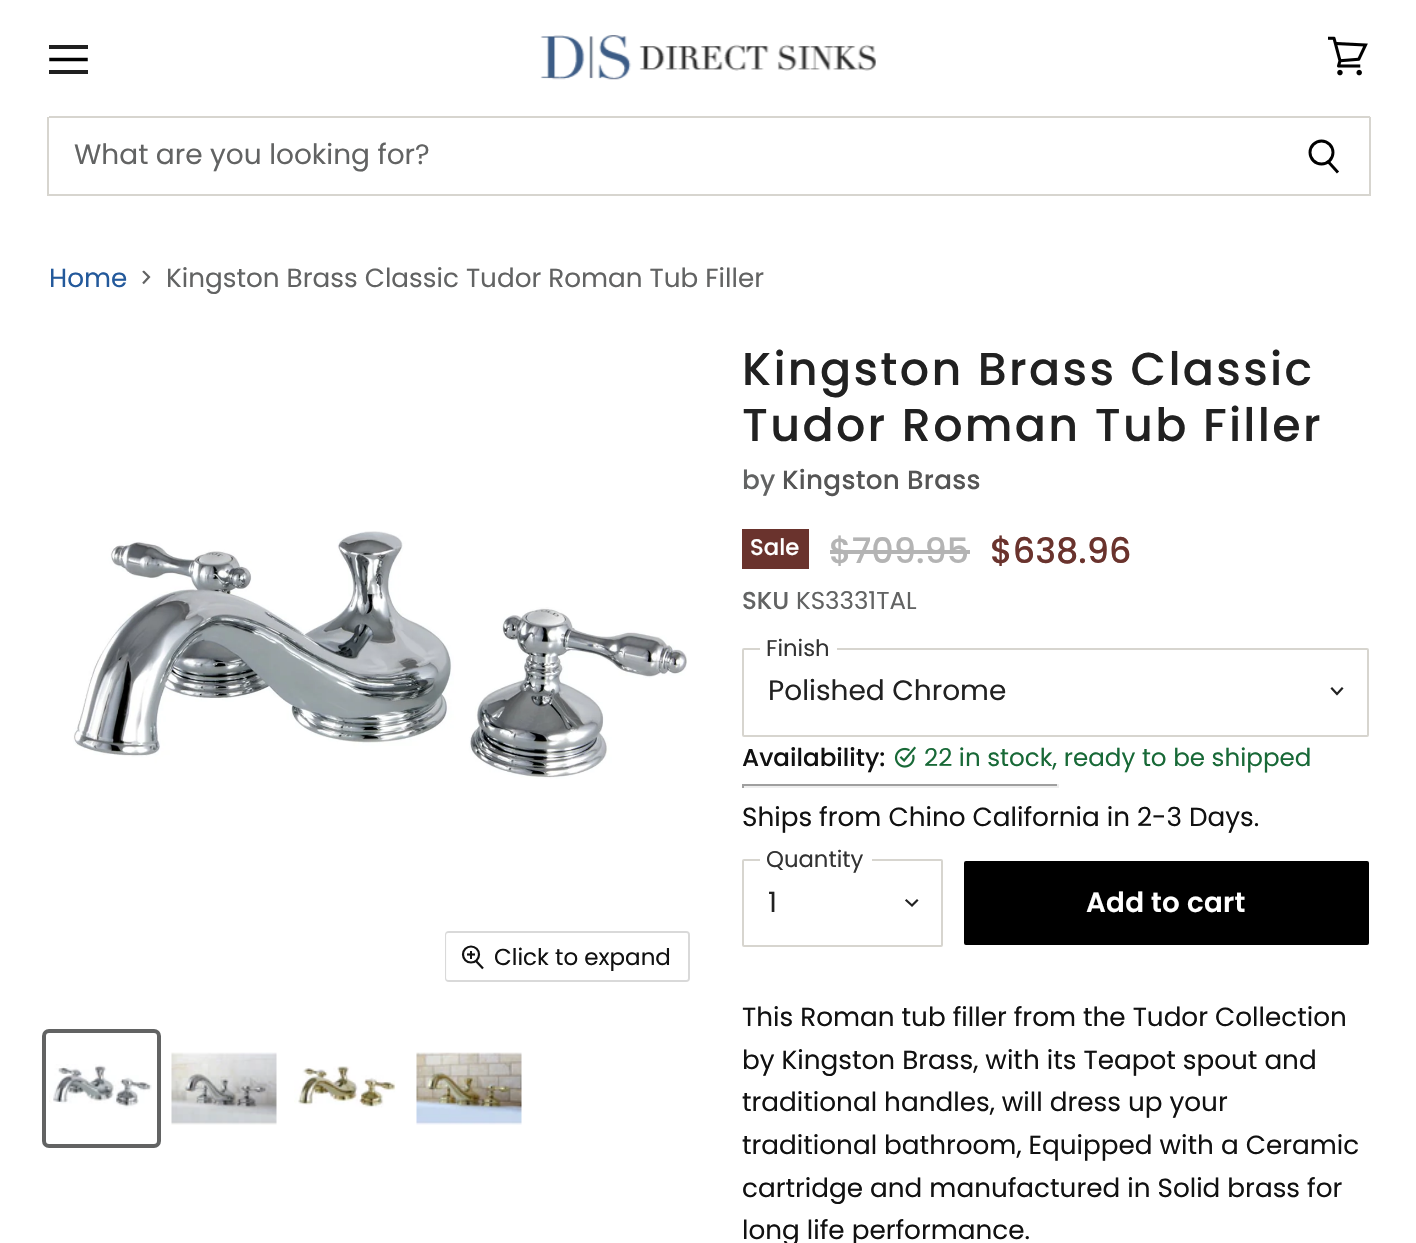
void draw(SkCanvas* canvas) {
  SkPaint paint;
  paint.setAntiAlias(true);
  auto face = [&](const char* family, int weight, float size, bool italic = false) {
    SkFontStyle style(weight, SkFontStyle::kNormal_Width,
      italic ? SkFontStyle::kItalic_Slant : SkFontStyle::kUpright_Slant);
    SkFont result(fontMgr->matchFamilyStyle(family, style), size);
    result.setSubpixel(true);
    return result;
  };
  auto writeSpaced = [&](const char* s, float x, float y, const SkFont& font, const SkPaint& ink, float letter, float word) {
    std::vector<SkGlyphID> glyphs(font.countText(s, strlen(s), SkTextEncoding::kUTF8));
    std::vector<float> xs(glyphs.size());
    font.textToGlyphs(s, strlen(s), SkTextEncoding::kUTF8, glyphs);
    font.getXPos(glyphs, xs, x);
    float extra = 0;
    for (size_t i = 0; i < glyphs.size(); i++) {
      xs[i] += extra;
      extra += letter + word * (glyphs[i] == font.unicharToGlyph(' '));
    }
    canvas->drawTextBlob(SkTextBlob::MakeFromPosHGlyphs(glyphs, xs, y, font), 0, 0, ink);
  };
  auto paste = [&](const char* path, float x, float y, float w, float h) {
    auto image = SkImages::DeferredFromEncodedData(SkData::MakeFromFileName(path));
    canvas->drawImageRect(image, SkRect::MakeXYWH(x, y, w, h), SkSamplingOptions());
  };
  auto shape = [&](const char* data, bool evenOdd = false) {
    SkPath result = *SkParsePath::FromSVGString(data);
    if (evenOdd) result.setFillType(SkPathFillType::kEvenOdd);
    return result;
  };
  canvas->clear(0xffffffff);
  paint.setColor(0xff202020);
  canvas->drawRect(SkRect::MakeXYWH(49, 45, 39, 4), paint);
  paint.setStroke(true);
  paint.setStrokeWidth(3.5f);
  paint.setStrokeCap(SkPaint::kSquare_Cap);
  paint.setStrokeJoin(SkPaint::kRound_Join);
  paint.setColor(0xff000000);
  canvas->drawPath(shape("M86 59.5H51"), paint);
  paint.setStroke(false);
  paint.setColor(0xff202020);
  canvas->drawRect(SkRect::MakeXYWH(49, 70, 39, 4), paint);
  paste("img/1.png", 1328, 36, 40, 40);
  paste("img/2.png", 540, 35, 336, 45);
  {
    const struct { float x, y, w, h; SkColor color; } items[] = {
      {49, 116, 1321, 2, 0xffd7d5cf},
      {1369, 117, 2, 79, 0xffd7d5cf},
      {49, 194, 1321, 2, 0xffd7d5cf},
    };
    for (auto [x, y, w, h, color] : items) {
      paint.setColor(color);
      canvas->drawRect(SkRect::MakeXYWH(x, y, w, h), paint);
    }
  }
  paint.setStroke(true);
  paint.setStrokeWidth(2.9f);
  paint.setStrokeCap(SkPaint::kButt_Cap);
  paint.setStrokeJoin(SkPaint::kMiter_Join);
  paint.setColor(0xff000000);
  canvas->drawPath(shape("M1338 172.5L1328.5 162"), paint);
  canvas->drawCircle(1321.5f, 152.5f, 11.5f, paint);
  paint.setStroke(false);
  paint.setColor(0xffd7d5cf);
  canvas->drawRect(SkRect::MakeXYWH(47, 117, 2, 79), paint);
  canvas->save();
  canvas->clipPath(shape("M142 284.5V270.5H151V284.5Z"), true);
  paint.setStroke(true);
  paint.setStrokeWidth(2.2f);
  paint.setColor(0xff626363);
  canvas->drawPath(shape("M143 283.5L149 277L143 271"), paint);
  canvas->restore();
  paste("img/3.png", 73, 531, 614, 248);
  paint.setStrokeWidth(2);
  paint.setColor(0xffd9d9d9);
  canvas->drawRoundRect(SkRect::MakeXYWH(446, 932, 243, 49), 3, 3, paint);
  paint.setStroke(false);
  paint.setColor(0xe6ffffff);
  canvas->drawRoundRect(SkRect::MakeXYWH(446, 933, 242, 47), 2, 2, paint);
  paint.setStroke(true);
  paint.setStrokeWidth(2.2f);
  paint.setColor(0xff111111);
  canvas->drawPath(shape("M475.5 960.5L483 968.5"), paint);
  canvas->drawCircle(471, 954.5f, 8, paint);
  paint.setStroke(false);
  canvas->drawRect(SkRect::MakeXYWH(470, 951, 2, 8), paint);
  paint.setStroke(true);
  paint.setStrokeJoin(SkPaint::kRound_Join);
  canvas->drawPath(shape("M467 954.5H475"), paint);
  paint.setStrokeWidth(4);
  paint.setStrokeJoin(SkPaint::kMiter_Join);
  paint.setColor(0xff626363);
  canvas->drawRoundRect(SkRect::MakeXYWH(44, 1031, 115, 115), 5, 5, paint);
  paste("img/4.png", 49, 1064, 103, 45);
  paste("img/5.png", 171, 1052, 106, 73);
  paste("img/6.png", 294, 1066, 102, 42);
  paste("img/7.png", 416, 1052, 106, 73);
  paint.setStroke(false);
  paint.setColor(0xff6a332d);
  canvas->drawRect(SkRect::MakeXYWH(742, 529, 67, 40), paint);
  paint.setColor(0xffb4b4b4);
  canvas->drawRect(SkRect::MakeXYWH(830, 550, 140, 4), paint);
  paint.setStroke(true);
  paint.setStrokeWidth(2);
  paint.setColor(0xffd7d5cf);
  canvas->drawRoundRect(SkRect::MakeXYWH(743, 649, 625, 87), 1, 1, paint);
  paint.setStroke(false);
  paint.setColor(0xffffffff);
  canvas->drawRoundRect(SkRect::MakeXYWH(760, 635, 77, 27), 2, 2, paint);
  paint.setStroke(true);
  paint.setStrokeWidth(2.2f);
  paint.setStrokeCap(SkPaint::kSquare_Cap);
  paint.setColor(0xff212121);
  canvas->drawPath(shape("M1337 694L1342 688.5M1337 694L1332 688.5"), paint);
  paste("img/8.png", 894, 746, 22, 22);
  paint.setStroke(false);
  {
    const struct { float x, y, w, h; SkColor color; } items[] = {
      {742, 784, 317, 2, 0xff9f9f9f},
      {1057, 784, 2, 4, 0xffeeeeee},
      {742, 786, 317, 2, 0xffeeeeee},
      {742, 784, 2, 4, 0xff9f9f9f},
    };
    for (auto [x, y, w, h, color] : items) {
      paint.setColor(color);
      canvas->drawRect(SkRect::MakeXYWH(x, y, w, h), paint);
    }
  }
  paint.setStroke(true);
  paint.setStrokeWidth(2);
  paint.setStrokeCap(SkPaint::kButt_Cap);
  paint.setColor(0xffd7d5cf);
  canvas->drawRoundRect(SkRect::MakeXYWH(743, 860, 199, 86), 1, 1, paint);
  paint.setStroke(false);
  paint.setColor(0xffffffff);
  canvas->drawRoundRect(SkRect::MakeXYWH(760, 847, 112, 26), 2, 2, paint);
  paint.setStroke(true);
  paint.setStrokeWidth(2.2f);
  paint.setStrokeCap(SkPaint::kSquare_Cap);
  paint.setColor(0xff212121);
  canvas->drawPath(shape("M912 905.5L917 900.5M912 905.5L906.5 900.5"), paint);
  paint.setStroke(false);
  paint.setColor(0xff000000);
  canvas->drawRoundRect(SkRect::MakeXYWH(965, 862, 403, 82), 1, 1, paint);
  paint.setStroke(true);
  paint.setStrokeWidth(2);
  paint.setStrokeCap(SkPaint::kButt_Cap);
  canvas->drawRoundRect(SkRect::MakeXYWH(965, 862, 403, 82), 1, 1, paint);
  auto f0 = face("Poppins", 400, 28);
  paint.setStroke(false);
  paint.setColor(0xff626363);
  canvas->drawString("What are you looking for?", 74, 164, f0, paint);
  auto f1 = face("Poppins", 400, 26.25f);
  paint.setColor(0xff23599b);
  canvas->drawString("Home", 49, 287, f1, paint);
  paint.setColor(0xff626363);
  canvas->drawString("Kingston Brass Classic Tudor Roman Tub Filler", 166, 287, f1, paint);
  auto f2 = face("Poppins", 400, 23);
  paint.setColor(0xff111111);
  canvas->drawString("Click to expand", 494, 965, f2, paint);
  auto f3 = face("Poppins", 500, 46);
  paint.setColor(0xff212121);
  writeSpaced("Kingston Brass Classic", 742, 385, f3, paint, 2.3f, 0);
  writeSpaced("Tudor Roman Tub Filler", 742, 441, f3, paint, 2.3f, 0);
  auto f4 = face("Poppins", 500, 26.25f);
  paint.setColor(0xff626363);
  writeSpaced("by", 742, 489, f4, paint, 0.25f, 0);
  paint.setColor(0xff555555);
  writeSpaced("Kingston Brass", 782, 489, f4, paint, 0.25f, 0);
  auto f5 = face("Poppins", 500, 22.75f);
  paint.setColor(0xffffffff);
  canvas->drawString("Sale", 750, 555, f5, paint);
  auto f6 = face("Poppins", 500, 35);
  paint.setColor(0xffb4b4b4);
  canvas->drawString("$709.95", 829, 563, f6, paint);
  paint.setColor(0xff6a332d);
  canvas->drawString("$638.96", 990, 563, f6, paint);
  auto f7 = face("Poppins", 500, 24.5f);
  paint.setColor(0xff626363);
  canvas->drawString("SKU", 742, 609, f7, paint);
  auto f8 = face("Poppins", 400, 24.5f);
  canvas->drawString("KS3331TAL", 796, 609, f8, paint);
  auto f9 = face("Poppins", 400, 22.75f);
  paint.setColor(0xff333333);
  canvas->drawString("Finish", 766, 656, f9, paint);
  paint.setColor(0xff212121);
  canvas->drawString("Polished Chrome", 768, 700, f0, paint);
  auto f10 = face("Poppins", 500, 24.6f);
  paint.setColor(0xff111111);
  canvas->drawString("Availability:", 742, 766, f10, paint);
  auto f11 = face("Poppins", 400, 24.6f);
  paint.setColor(0xff186937);
  canvas->drawString("22 in stock, ready to be shipped", 924, 766, f11, paint);
  paint.setColor(0xff111111);
  canvas->drawString("Ships from Chino California in 2-3 Days.", 742, 826, f1, paint);
  paint.setColor(0xff333333);
  canvas->drawString("Quantity", 766, 867, f9, paint);
  paint.setColor(0xff212121);
  canvas->drawString("1", 768, 912, f0, paint);
  auto f12 = face("Poppins", 600, 27.75f);
  paint.setColor(0xffffffff);
  writeSpaced("Add to cart", 1086, 912, f12, paint, 0.25f, 0);
  paint.setColor(0xff111111);
  {
    const struct { const char* s; float x, y; } items[] = {
      {"This Roman tub filler from the Tudor Collection", 742, 1026},
      {"by Kingston Brass, with its Teapot spout and", 742, 1069},
      {"traditional handles, will dress up your", 742, 1111},
      {"traditional bathroom, Equipped with a Ceramic", 742, 1154},
      {"cartridge and manufactured in Solid brass for", 742, 1197},
      {"long life performance.", 742, 1239},
    };
    for (auto [s, x, y] : items) {
      canvas->drawString(s, x, y, f1, paint);
    }
  }
}
